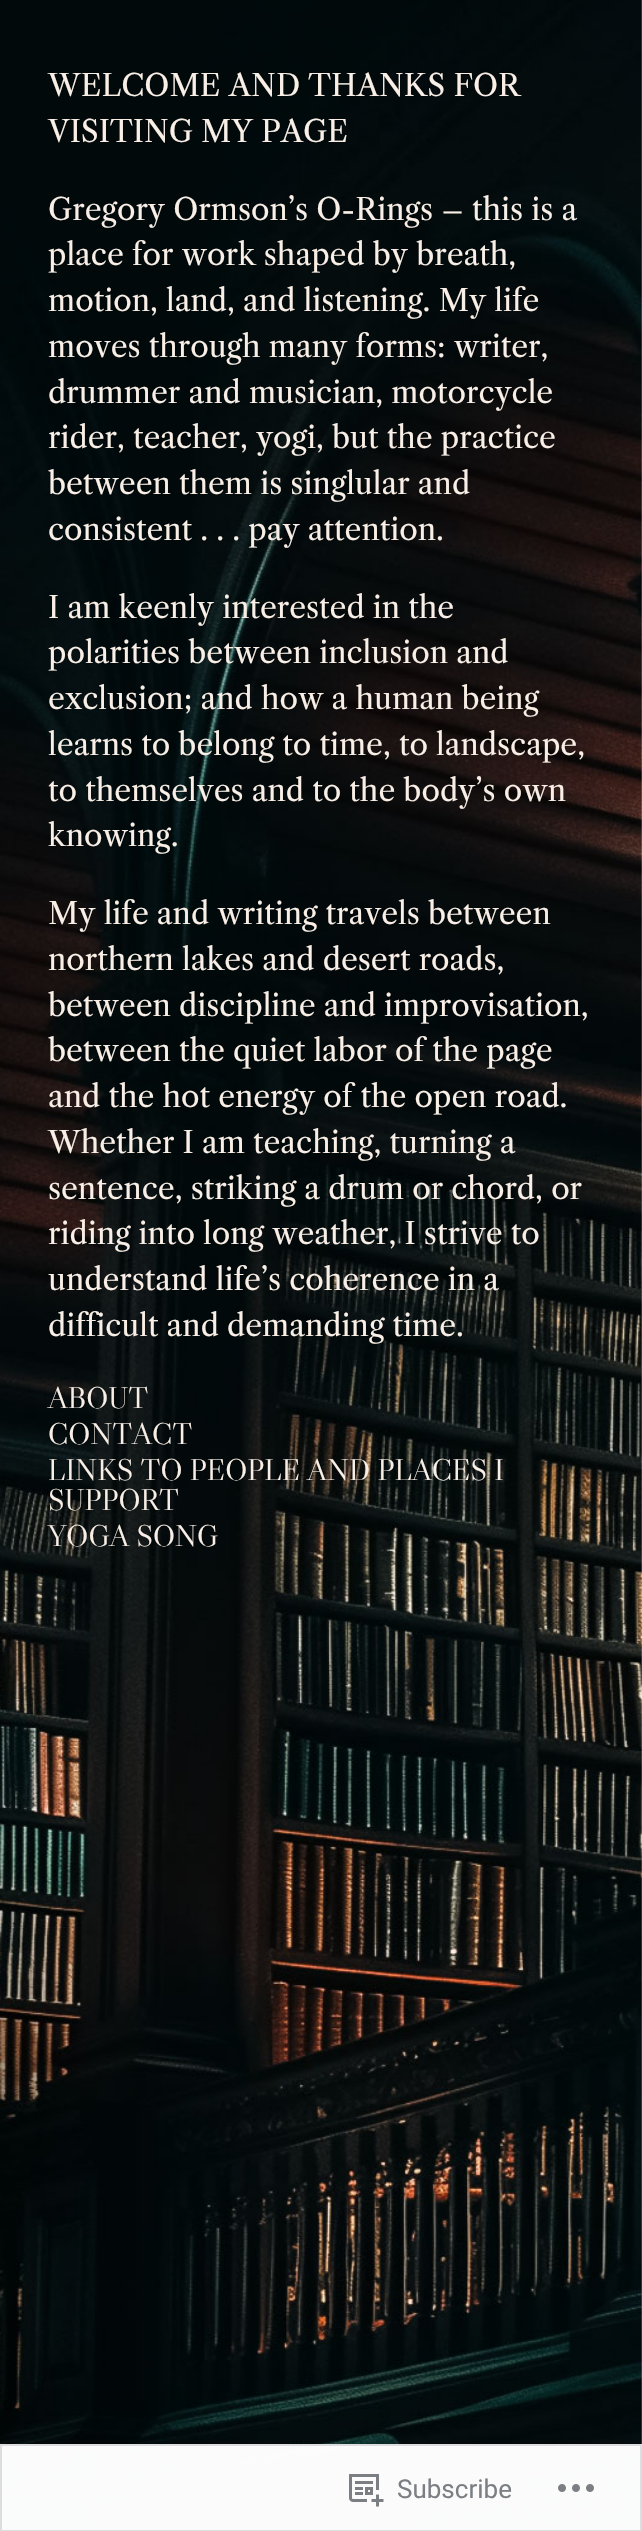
void draw(SkCanvas* canvas) {
  SkPaint paint;
  paint.setAntiAlias(true);
  auto face = [&](const char* family, int weight, float size, bool italic = false) {
    SkFontStyle style(weight, SkFontStyle::kNormal_Width,
      italic ? SkFontStyle::kItalic_Slant : SkFontStyle::kUpright_Slant);
    SkFont result(fontMgr->matchFamilyStyle(family, style), size);
    result.setSubpixel(true);
    return result;
  };
  auto paste = [&](const char* path, float x, float y, float w, float h) {
    auto image = SkImages::DeferredFromEncodedData(SkData::MakeFromFileName(path));
    canvas->drawImageRect(image, SkRect::MakeXYWH(x, y, w, h), SkSamplingOptions());
  };
  canvas->clear(0xffffffff);
  paste("img/1.png", 0, 0, 642, 2530);
  paint.setColor(0xfaffffff);
  canvas->drawRect(SkRect::MakeXYWH(1, 2445, 640, 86), paint);
  paint.setStroke(true);
  paint.setStrokeWidth(2);
  paint.setColor(0xffdddddf);
  canvas->drawRect(SkRect::MakeXYWH(1, 2445, 640, 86), paint);
  paste("img/2.png", 349, 2474, 35, 33);
  paste("img/3.png", 558, 2484, 36, 8);
  auto f0 = face("Libre Caslon Text", 400, 30);
  paint.setStroke(false);
  paint.setColor(0xfff9efe6);
  {
    const struct { const char* s; float x, y; } items[] = {
      {"WELCOME AND THANKS FOR", 48, 96},
      {"VISITING MY PAGE", 48, 142},
      {"Gregory Ormson’s O-Rings – this is a", 48, 220},
      {"place for work shaped by breath,", 48, 265},
      {"motion, land, and listening. My life", 48, 311},
      {"moves through many forms: writer,", 48, 357},
      {"drummer and musician, motorcycle", 48, 403},
      {"rider, teacher, yogi, but the practice", 48, 448},
      {"between them is singlular and", 48, 494},
      {"consistent . . . pay attention.", 48, 540},
      {"I am keenly interested in the", 48, 618},
      {"polarities between inclusion and", 48, 663},
      {"exclusion; and how a human being", 48, 709},
      {"learns to belong to time, to landscape,", 48, 755},
      {"to themselves and to the body’s own", 48, 801},
      {"knowing.", 48, 846},
      {"My life and writing travels between", 48, 924},
      {"northern lakes and desert roads,", 48, 970},
      {"between discipline and improvisation,", 48, 1016},
      {"between the quiet labor of the page", 48, 1061},
      {"and the hot energy of the open road.", 48, 1107},
      {"Whether I am teaching, turning a", 48, 1153},
      {"sentence, striking a drum or chord, or", 48, 1199},
      {"riding into long weather, I strive to", 48, 1244},
      {"understand life’s coherence in a", 48, 1290},
      {"difficult and demanding time.", 48, 1336},
    };
    for (auto [s, x, y] : items) {
      canvas->drawString(s, x, y, f0, paint);
    }
  }
  auto f1 = face("Libre Caslon Display", 400, 30);
  {
    const struct { const char* s; float x, y; } items[] = {
      {"ABOUT", 48, 1408},
      {"CONTACT", 48, 1444},
      {"LINKS TO PEOPLE AND PLACES I", 48, 1480},
      {"SUPPORT", 48, 1510},
      {"YOGA SONG", 48, 1546},
    };
    for (auto [s, x, y] : items) {
      canvas->drawString(s, x, y, f1, paint);
    }
  }
  auto f2 = face("Roboto", 400, 26);
  paint.setColor(0xff7b7f84);
  canvas->drawString("Subscribe", 397, 2498, f2, paint);
}
